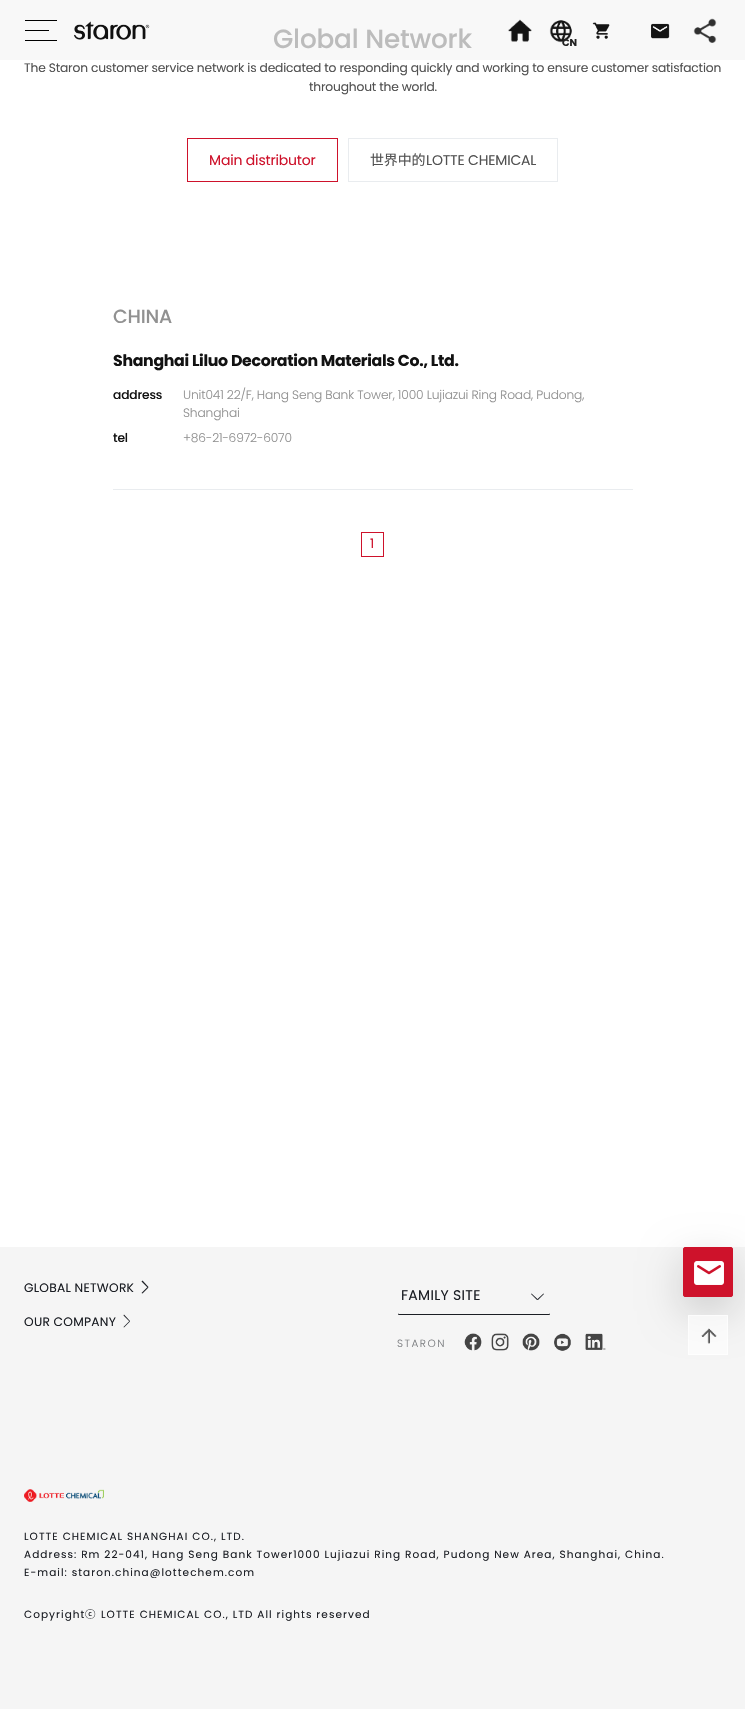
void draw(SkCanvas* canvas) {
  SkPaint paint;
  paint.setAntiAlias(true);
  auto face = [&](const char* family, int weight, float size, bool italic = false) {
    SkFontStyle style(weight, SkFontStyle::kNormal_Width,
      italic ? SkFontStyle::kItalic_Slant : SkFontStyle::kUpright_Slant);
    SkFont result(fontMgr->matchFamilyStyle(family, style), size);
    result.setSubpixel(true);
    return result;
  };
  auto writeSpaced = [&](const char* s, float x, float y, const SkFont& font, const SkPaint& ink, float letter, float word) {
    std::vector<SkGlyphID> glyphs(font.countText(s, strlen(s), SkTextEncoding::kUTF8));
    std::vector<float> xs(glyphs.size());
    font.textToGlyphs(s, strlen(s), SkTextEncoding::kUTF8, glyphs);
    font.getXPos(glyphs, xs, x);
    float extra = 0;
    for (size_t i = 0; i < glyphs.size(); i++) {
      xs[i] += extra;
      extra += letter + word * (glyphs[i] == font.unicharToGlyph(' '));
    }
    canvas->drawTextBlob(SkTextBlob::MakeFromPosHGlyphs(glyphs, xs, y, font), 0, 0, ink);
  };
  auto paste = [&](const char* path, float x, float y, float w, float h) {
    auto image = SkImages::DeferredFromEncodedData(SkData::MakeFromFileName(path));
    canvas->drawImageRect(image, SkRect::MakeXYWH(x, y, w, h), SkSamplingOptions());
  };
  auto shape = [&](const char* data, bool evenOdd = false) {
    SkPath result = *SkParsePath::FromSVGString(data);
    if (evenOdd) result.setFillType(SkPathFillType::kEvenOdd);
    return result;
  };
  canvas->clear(0xffffffff);
  paint.setColor(0xfff8f8f8);
  canvas->drawRect(SkRect::MakeXYWH(0, 0, 745, 60), paint);
  paint.setStroke(true);
  paint.setStrokeWidth(1);
  paint.setColor(0xffce122b);
  canvas->drawRect(SkRect::MakeXYWH(187.5f, 138.5f, 150, 43), paint);
  paint.setColor(0xffe9ecef);
  canvas->drawRect(SkRect::MakeXYWH(348.5f, 138.5f, 209, 43), paint);
  paint.setStroke(false);
  canvas->drawRect(SkRect::MakeXYWH(113, 489, 520, 1), paint);
  paint.setStroke(true);
  paint.setColor(0xffce122b);
  canvas->drawRect(SkRect::MakeXYWH(361.5f, 532.5f, 22, 24), paint);
  paint.setStroke(false);
  {
    const struct { float x, y, w, h; SkColor color; } items[] = {
      {25, 30, 24, 1, 0xff000000},
      {25, 20, 32, 1, 0xff000000},
      {25, 40, 32, 1, 0xff000000},
    };
    for (auto [x, y, w, h, color] : items) {
      paint.setColor(color);
      canvas->drawRect(SkRect::MakeXYWH(x, y, w, h), paint);
    }
  }
  paste("img/1.png", 74, 21, 76, 19);
  paste("img/2.png", 508, 19, 24, 23);
  paste("img/3.png", 592, 22, 18, 17);
  paste("img/4.png", 651, 23, 19, 16);
  paste("img/5.png", 693, 18, 24, 25);
  paste("img/6.png", 549, 20, 23, 23);
  paint.setColor(0xfff5f5f5);
  canvas->drawRect(SkRect::MakeXYWH(0, 1247, 745, 462), paint);
  paint.setColor(0xff1b1e24);
  canvas->drawPath(shape("M141.5 1293L147.5 1287L148.5 1287.5L142.5 1293.5Z"), paint);
  canvas->drawPath(shape("M147.5 1287.5L141.5 1281.5L142.5 1280.5L148.5 1287Z"), paint);
  canvas->drawPath(shape("M123.5 1327L129.5 1321L130 1321.5L124 1327.5Z"), paint);
  canvas->drawPath(shape("M129.5 1321.5L123.5 1315.5L124 1314.5L130 1321Z"), paint);
  paint.setStroke(true);
  canvas->drawPath(shape("M550 1314L549 1314.5H399L398 1314"), paint);
  paint.setStroke(false);
  canvas->drawPath(shape("M531.5 1293.5L538 1299.5L537 1300L531 1294Z"), paint);
  canvas->drawPath(shape("M537 1299.5L543.5 1293.5L544 1294L538 1300Z"), paint);
  paste("img/7.png", 464, 1333, 18, 18);
  paste("img/8.png", 491, 1333, 18, 18);
  paste("img/9.png", 522, 1333, 18, 18);
  paste("img/10.png", 554, 1333, 17, 18);
  paste("img/11.png", 585, 1333, 21, 17);
  paste("img/12.png", 24, 1489, 80, 13);
  paint.setColor(0x2e000000);
  paint.setMaskFilter(SkMaskFilter::MakeBlur(kNormal_SkBlurStyle, 21));
  canvas->drawRoundRect(SkRect::MakeXYWH(683, 1261, 50, 50), 2, 2, paint);
  paint.setMaskFilter(nullptr);
  paint.setColor(0xffce122b);
  canvas->drawRoundRect(SkRect::MakeXYWH(683.5f, 1247.5f, 49, 49), 1.5f, 1.5f, paint);
  paint.setStroke(true);
  canvas->drawRoundRect(SkRect::MakeXYWH(683.5f, 1247.5f, 49, 49), 1.5f, 1.5f, paint);
  paste("img/13.png", 694, 1261, 30, 24);
  paint.setStroke(false);
  paint.setColor(0xa3ffffff);
  canvas->drawRect(SkRect::MakeXYWH(688, 1315, 40, 40), paint);
  paint.setStroke(true);
  canvas->drawRect(SkRect::MakeXYWH(688.5f, 1315.5f, 39, 39), paint);
  paste("img/14.png", 701, 1328, 16, 16);
  auto f0 = face("Poppins", 500, 26.25f);
  paint.setStroke(false);
  paint.setColor(0xffbcbcbc);
  writeSpaced("Global Network", 273, 48, f0, paint, -0.17f, 0);
  auto f1 = face("Poppins", 400, 12.25f);
  paint.setColor(0xff515151);
  writeSpaced("The Staron customer service network is dedicated to responding quickly and working to ensure customer satisfaction", 24, 72, f1, paint, -0.17f, 0);
  writeSpaced("throughout the world.", 309, 91, f1, paint, -0.17f, 0);
  auto f2 = face("Poppins", 400, 14);
  paint.setColor(0xffce122b);
  writeSpaced("Main distributor", 209, 165, f2, paint, -0.17f, 0);
  auto f3 = face("Noto Sans KR", 400, 14);
  paint.setColor(0xff515151);
  writeSpaced("世界中的", 370, 165, f3, paint, -0.17f, 0);
  writeSpaced("LOTTE CHEMICAL", 426, 165, f2, paint, -0.17f, 0);
  auto f4 = face("Poppins", 500, 19);
  paint.setColor(0xff919191);
  writeSpaced("CHINA", 113, 323, f4, paint, -0.17f, 0);
  auto f5 = face("Poppins", 700, 15.75f);
  paint.setColor(0xff121212);
  writeSpaced("Shanghai Liluo Decoration Materials Co., Ltd.", 113, 366, f5, paint, -0.3f, 0);
  auto f6 = face("Poppins", 500, 12.25f);
  writeSpaced("address", 113, 399, f6, paint, -0.15f, 0);
  auto f7 = face("Poppins", 300, 12.25f);
  paint.setColor(0xff919191);
  writeSpaced("Unit041 22/F, Hang Seng Bank Tower, 1000 Lujiazui Ring Road, Pudong,", 183, 399, f7, paint, -0.15f, 0);
  writeSpaced("Shanghai", 183, 417, f7, paint, -0.15f, 0);
  paint.setColor(0xff121212);
  writeSpaced("tel", 113, 442, f6, paint, -0.15f, 0);
  paint.setColor(0xff919191);
  writeSpaced("+86-21-6972-6070", 183, 442, f7, paint, -0.15f, 0);
  auto f8 = face("Poppins", 400, 13);
  paint.setColor(0xffce122b);
  writeSpaced("1", 370, 548, f8, paint, -0.17f, 0);
  auto f9 = face("Poppins", 700, 10);
  paint.setColor(0xff222222);
  canvas->drawString("CN", 562, 46, f9, paint);
  paint.setColor(0xff1b1e24);
  writeSpaced("GLOBAL NETWORK", 24, 1292, f1, paint, 0.25f, 0);
  writeSpaced("OUR COMPANY", 24, 1326, f1, paint, 0.25f, 0);
  writeSpaced("FAMILY SITE", 401, 1300, f2, paint, 0.3f, 0);
  auto f10 = face("Poppins", 300, 10.5f);
  paint.setColor(0xff7b7d80);
  writeSpaced("STARON", 397, 1347, f10, paint, 1.5f, 0);
  auto f11 = face("Poppins", 400, 10.5f);
  paint.setColor(0xff1b1e24);
  {
    const struct { const char* s; float x, y; } items[] = {
      {"LOTTE CHEMICAL SHANGHAI CO., LTD.", 24, 1540},
      {"Address: Rm 22-041, Hang Seng Bank Tower1000 Lujiazui Ring Road, Pudong New Area, Shanghai, China.", 24, 1558},
      {"E-mail: staron.china@lottechem.com", 24, 1576},
      {"Copyright", 24, 1618},
    };
    for (auto [s, x, y] : items) {
      writeSpaced(s, x, y, f11, paint, 1.05f, 0);
    }
  }
  auto f12 = face("Noto Sans KR", 400, 10.5f);
  writeSpaced("ⓒ", 85, 1618, f12, paint, 1.05f, 0);
  writeSpaced("LOTTE CHEMICAL CO., LTD All rights reserved", 101, 1618, f11, paint, 1.05f, 0);
}
